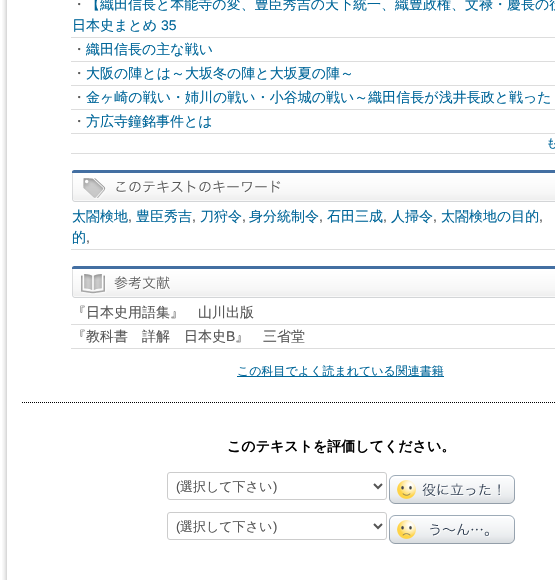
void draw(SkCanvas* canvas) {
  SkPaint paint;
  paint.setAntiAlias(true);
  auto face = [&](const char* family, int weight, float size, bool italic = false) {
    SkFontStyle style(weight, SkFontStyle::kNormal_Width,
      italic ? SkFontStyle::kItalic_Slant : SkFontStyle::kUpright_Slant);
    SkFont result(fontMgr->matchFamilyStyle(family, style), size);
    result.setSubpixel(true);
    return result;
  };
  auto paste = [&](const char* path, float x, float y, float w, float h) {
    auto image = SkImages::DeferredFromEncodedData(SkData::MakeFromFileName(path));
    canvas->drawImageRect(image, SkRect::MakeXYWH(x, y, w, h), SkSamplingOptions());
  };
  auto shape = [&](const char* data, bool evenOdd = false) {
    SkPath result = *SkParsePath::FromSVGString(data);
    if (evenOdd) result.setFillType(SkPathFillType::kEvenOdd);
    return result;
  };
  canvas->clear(0xffffffff);
  paste("img/1.png", 2, 0, 5, 580);
  {
    const struct { float x, y, w, h; SkColor color; } items[] = {
      {71, 37, 484, 1, 0xffdddddd},
      {71, 61, 484, 1, 0xffdddddd},
      {71, 85, 484, 1, 0xffdddddd},
      {71, 109, 484, 1, 0xffdddddd},
      {71, 133, 484, 1, 0xffdddddd},
      {71, 153, 484, 1, 0xffdddddd},
    };
    for (auto [x, y, w, h, color] : items) {
      paint.setColor(color);
      canvas->drawRect(SkRect::MakeXYWH(x, y, w, h), paint);
    }
  }
  paste("img/2.png", 72, 170, 483, 32);
  canvas->drawRect(SkRect::MakeXYWH(71, 249, 484, 1), paint);
  paste("img/3.png", 72, 266, 483, 32);
  {
    const struct { float x, y, w, h; SkColor color; } items[] = {
      {71, 324, 484, 1, 0xffdddddd},
      {71, 348, 484, 1, 0xffdddddd},
      {237, 376, 207, 1, 0xff006699},
    };
    for (auto [x, y, w, h, color] : items) {
      paint.setColor(color);
      canvas->drawRect(SkRect::MakeXYWH(x, y, w, h), paint);
    }
  }
  paint.setStroke(true);
  paint.setStrokeWidth(1);
  paint.setColor(0xff000000);
  paint.setPathEffect(SkDashPathEffect::Make({{1, 1}}, 0));
  canvas->drawPath(shape("M22 402.5H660"), paint);
  paint.setPathEffect(nullptr);
  paint.setColor(0xffcccccc);
  canvas->drawRoundRect(SkRect::MakeXYWH(167.5f, 472.5f, 219, 27), 2.5f, 2.5f, paint);
  paint.setStrokeWidth(2);
  paint.setColor(0xff555555);
  canvas->drawPath(shape("M374 484L378 488L382 484"), paint);
  paste("img/4.png", 389, 475, 126, 29);
  paint.setStrokeWidth(1);
  paint.setColor(0xffcccccc);
  canvas->drawRoundRect(SkRect::MakeXYWH(167.5f, 512.5f, 219, 27), 2.5f, 2.5f, paint);
  paint.setStrokeWidth(2);
  paint.setColor(0xff555555);
  canvas->drawPath(shape("M374 524L378 528L382 524"), paint);
  paste("img/5.png", 389, 515, 126, 29);
  auto f0 = face("WenQuanYi Zen Hei", 500, 14);
  paint.setStroke(false);
  canvas->drawString("・", 72, 9, f0, paint);
  paint.setColor(0xff006699);
  canvas->drawString("【織田信長と本能寺の変、豊臣秀吉の天下統一、織豊政権、文禄・慶長の役", 86, 9, f0, paint);
  canvas->drawString("日本史まとめ", 72, 30, f0, paint);
  auto f1 = face("Liberation Sans", 400, 14);
  canvas->drawString("35", 161, 30, f1, paint);
  paint.setColor(0xff555555);
  canvas->drawString("・", 72, 54, f0, paint);
  paint.setColor(0xff006699);
  canvas->drawString("織田信長の主な戦い", 86, 54, f0, paint);
  paint.setColor(0xff555555);
  canvas->drawString("・", 72, 78, f0, paint);
  paint.setColor(0xff006699);
  canvas->drawString("大阪の陣とは～大坂冬の陣と大坂夏の陣～", 86, 78, f0, paint);
  paint.setColor(0xff555555);
  canvas->drawString("・", 72, 102, f0, paint);
  paint.setColor(0xff006699);
  canvas->drawString("金ヶ崎の戦い・姉川の戦い・小谷城の戦い～織田信長が浅井長政と戦った", 86, 102, f0, paint);
  paint.setColor(0xff555555);
  canvas->drawString("・", 72, 126, f0, paint);
  paint.setColor(0xff006699);
  canvas->drawString("方広寺鐘銘事件とは", 86, 126, f0, paint);
  auto f2 = face("WenQuanYi Zen Hei", 500, 12);
  canvas->drawString("も", 546, 147, f2, paint);
  canvas->drawString("太閤検地", 72, 221, f0, paint);
  paint.setColor(0xff555555);
  canvas->drawString(",", 128, 221, f1, paint);
  paint.setColor(0xff006699);
  canvas->drawString("豊臣秀吉", 136, 221, f0, paint);
  paint.setColor(0xff555555);
  canvas->drawString(",", 192, 221, f1, paint);
  paint.setColor(0xff006699);
  canvas->drawString("刀狩令", 200, 221, f0, paint);
  paint.setColor(0xff555555);
  canvas->drawString(",", 242, 221, f1, paint);
  paint.setColor(0xff006699);
  canvas->drawString("身分統制令", 249, 221, f0, paint);
  paint.setColor(0xff555555);
  canvas->drawString(",", 319, 221, f1, paint);
  paint.setColor(0xff006699);
  canvas->drawString("石田三成", 327, 221, f0, paint);
  paint.setColor(0xff555555);
  canvas->drawString(",", 383, 221, f1, paint);
  paint.setColor(0xff006699);
  canvas->drawString("人掃令", 391, 221, f0, paint);
  paint.setColor(0xff555555);
  canvas->drawString(",", 433, 221, f1, paint);
  paint.setColor(0xff006699);
  canvas->drawString("太閤検地の目的", 441, 221, f0, paint);
  paint.setColor(0xff555555);
  canvas->drawString(",", 539, 221, f1, paint);
  paint.setColor(0xff006699);
  canvas->drawString("的", 72, 242, f0, paint);
  paint.setColor(0xff555555);
  canvas->drawString(",", 86, 242, f1, paint);
  canvas->drawString("『日本史用語集』　山川出版", 72, 317, f0, paint);
  canvas->drawString("『教科書　詳解　日本史", 72, 341, f0, paint);
  canvas->drawString("B", 226, 341, f1, paint);
  canvas->drawString("』　三省堂", 235, 341, f0, paint);
  paint.setColor(0xff006699);
  canvas->drawString("この科目でよく読まれている関連書籍", 237, 375, f2, paint);
  auto f3 = face("WenQuanYi Zen Hei", 700, 14);
  paint.setColor(0xff000000);
  canvas->drawString("このテキストを評価してください。", 227, 451, f3, paint);
  auto f4 = face("Liberation Sans", 400, 13);
  paint.setColor(0xff555555);
  canvas->drawString("(", 176, 491, f4, paint);
  auto f5 = face("WenQuanYi Zen Hei", 500, 13);
  canvas->drawString("選択して下さい", 180, 491, f5, paint);
  canvas->drawString(")", 273, 491, f4, paint);
  canvas->drawString("(", 176, 531, f4, paint);
  canvas->drawString("選択して下さい", 180, 531, f5, paint);
  canvas->drawString(")", 273, 531, f4, paint);
}
